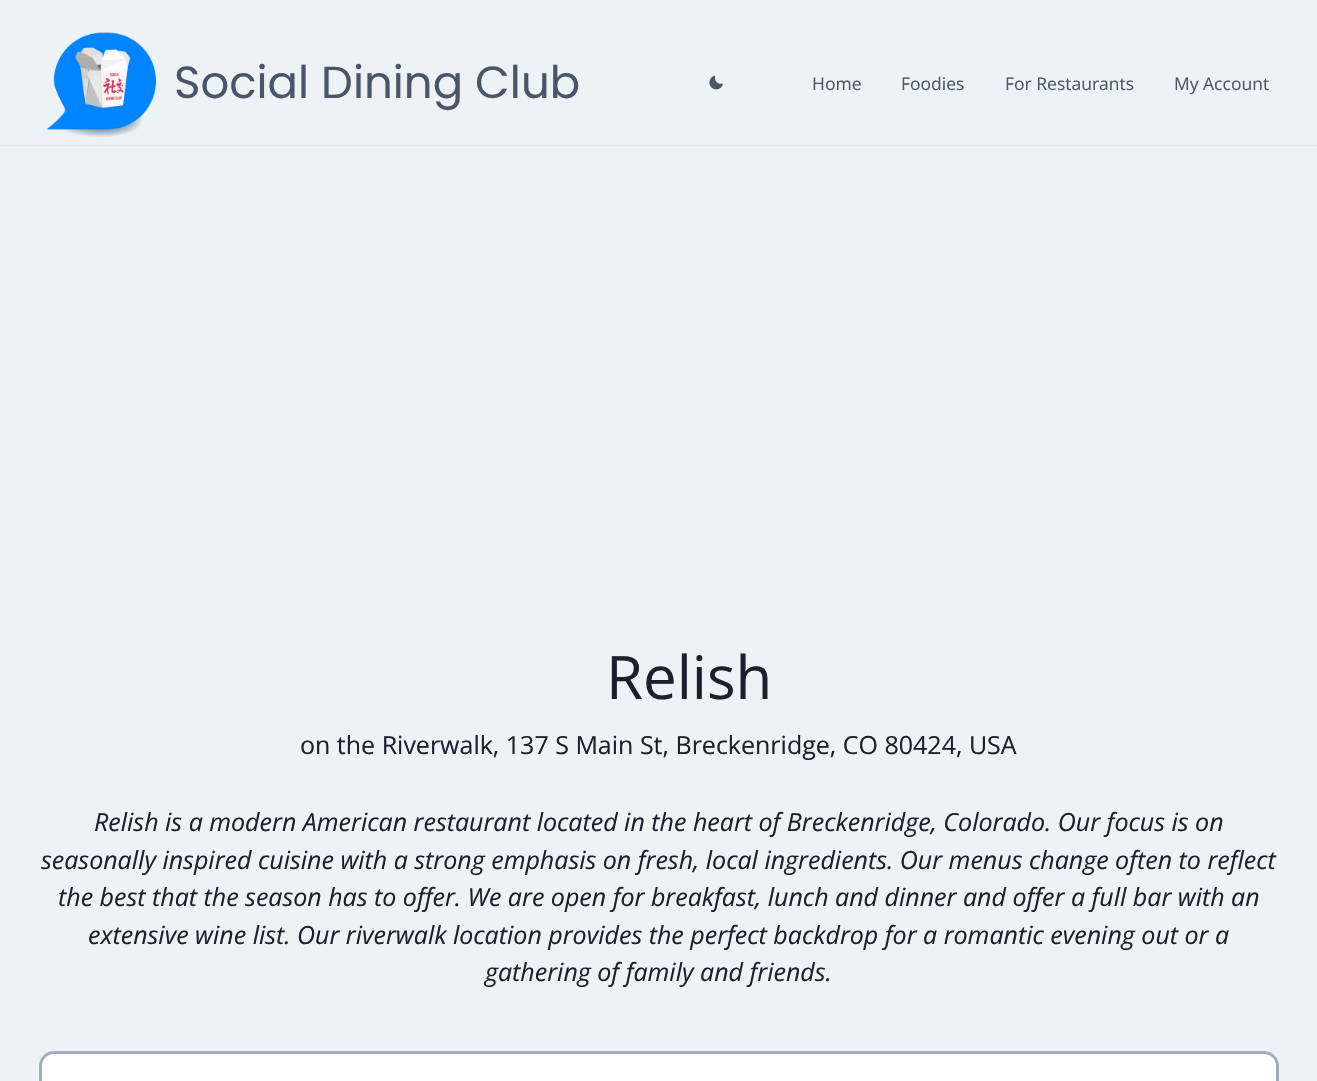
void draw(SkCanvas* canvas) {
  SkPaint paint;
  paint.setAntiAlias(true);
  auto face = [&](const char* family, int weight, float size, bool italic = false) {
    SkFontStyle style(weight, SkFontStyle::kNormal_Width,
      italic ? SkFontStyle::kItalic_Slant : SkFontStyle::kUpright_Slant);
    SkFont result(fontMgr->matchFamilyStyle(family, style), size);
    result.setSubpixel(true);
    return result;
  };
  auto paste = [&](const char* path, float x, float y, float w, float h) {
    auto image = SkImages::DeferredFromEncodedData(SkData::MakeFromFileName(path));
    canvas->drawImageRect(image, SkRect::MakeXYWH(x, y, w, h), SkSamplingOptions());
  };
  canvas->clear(0xffedf2f7);
  paint.setColor(0xffe2e8f0);
  canvas->drawRect(SkRect::MakeXYWH(0, 145, 1317, 1), paint);
  paste("img/1.png", 46, 32, 110, 105);
  paste("img/2.png", 709, 75, 14, 15);
  paint.setColor(0xffffffff);
  canvas->drawRoundRect(SkRect::MakeXYWH(40.5f, 1052.5f, 1237, 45), 13.5f, 13.5f, paint);
  paint.setStroke(true);
  paint.setStrokeWidth(3);
  paint.setColor(0xffa0aec0);
  canvas->drawRoundRect(SkRect::MakeXYWH(40.5f, 1052.5f, 1237, 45), 13.5f, 13.5f, paint);
  auto f0 = face("Poppins", 400, 45);
  paint.setStroke(false);
  paint.setColor(0xff4a5568);
  canvas->drawString("Social Dining Club", 174, 98, f0, paint);
  auto f1 = face("Open Sans", 400, 17.5f);
  {
    const struct { const char* s; float x, y; } items[] = {
      {"Home", 812, 90},
      {"Foodies", 901, 90},
      {"For Restaurants", 1005, 90},
      {"My Account", 1174, 90},
    };
    for (auto [s, x, y] : items) {
      canvas->drawString(s, x, y, f1, paint);
    }
  }
  auto f2 = face("Open Sans", 400, 60);
  paint.setColor(0xff1a202c);
  canvas->drawString("Relish", 606, 699, f2, paint);
  auto f3 = face("Open Sans", 400, 25);
  canvas->drawString("on the Riverwalk, 137 S Main St, Breckenridge, CO 80424, USA", 300, 754, f3, paint);
  auto f4 = face("Open Sans", 400, 25, true);
  {
    const struct { const char* s; float x, y; } items[] = {
      {"Relish is a modern American restaurant located in the heart of Breckenridge, Colorado. Our focus is on", 94, 831},
      {"seasonally inspired cuisine with a strong emphasis on fresh, local ingredients. Our menus change often to reflect", 41, 869},
      {"the best that the season has to offer. We are open for breakfast, lunch and dinner and offer a full bar with an", 58, 906},
      {"extensive wine list. Our riverwalk location provides the perfect backdrop for a romantic evening out or a", 88, 944},
      {"gathering of family and friends.", 485, 981},
    };
    for (auto [s, x, y] : items) {
      canvas->drawString(s, x, y, f4, paint);
    }
  }
}
